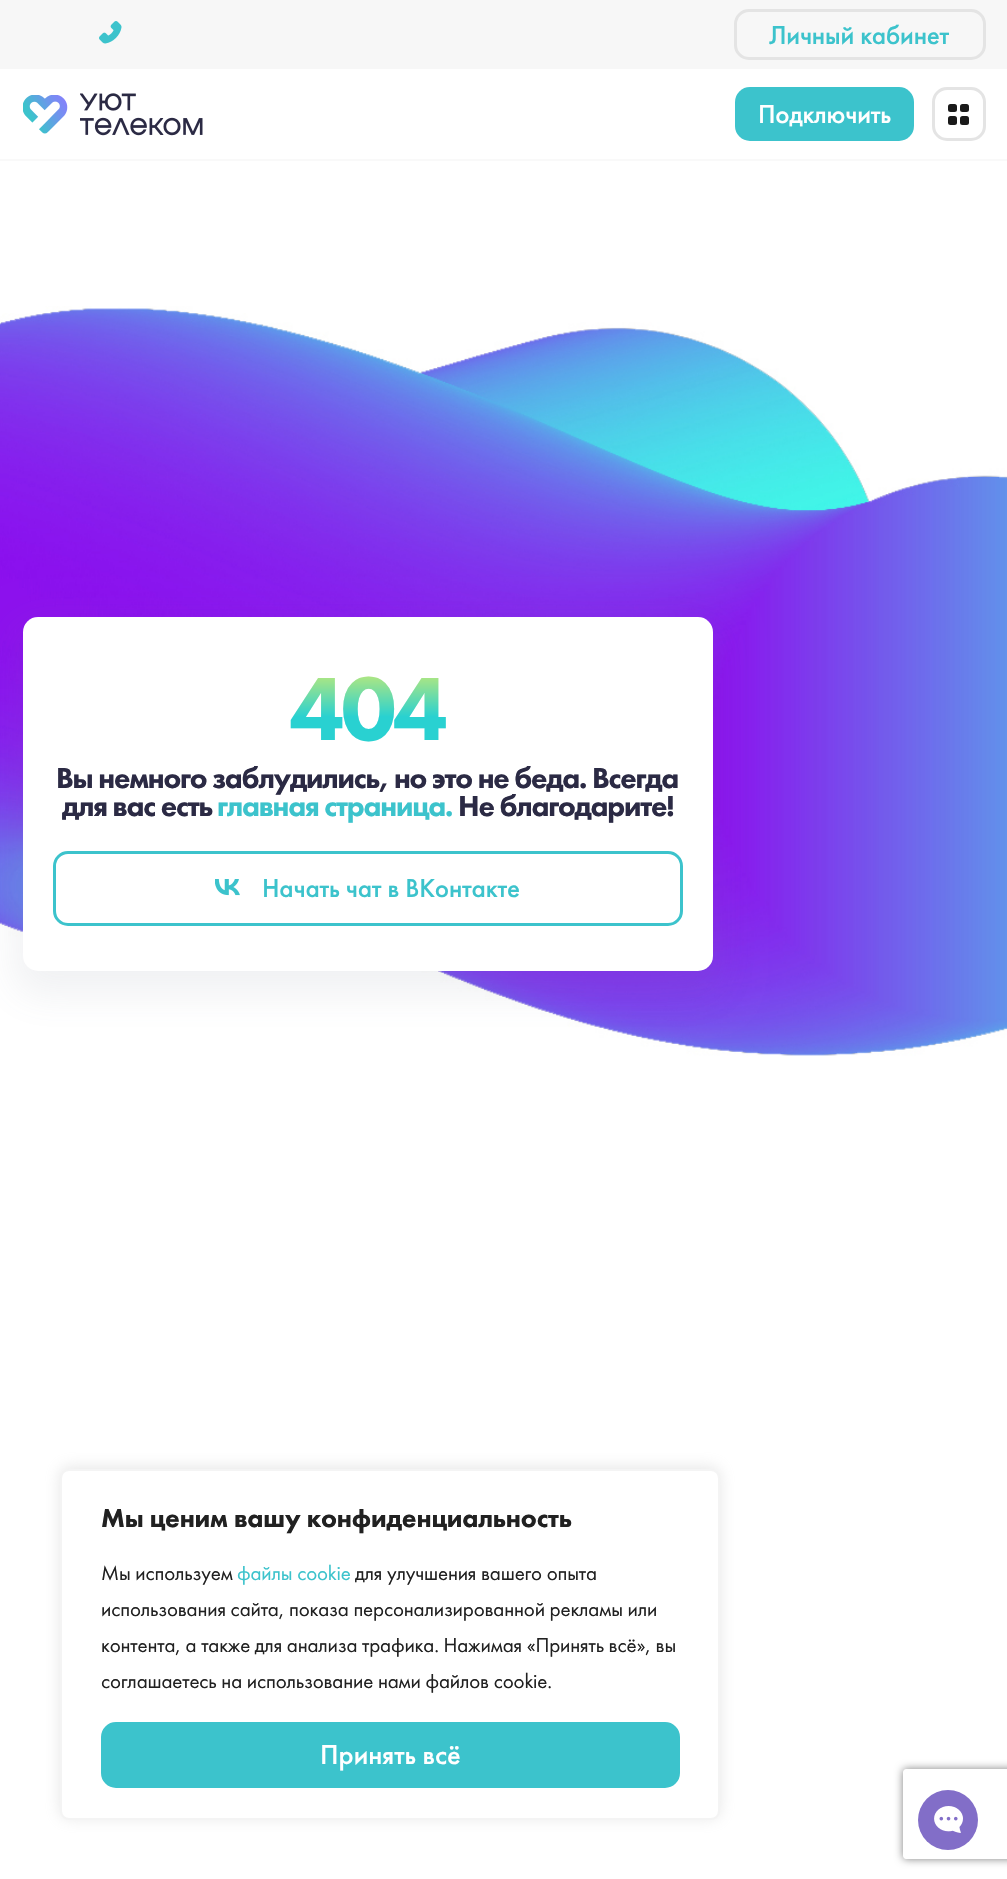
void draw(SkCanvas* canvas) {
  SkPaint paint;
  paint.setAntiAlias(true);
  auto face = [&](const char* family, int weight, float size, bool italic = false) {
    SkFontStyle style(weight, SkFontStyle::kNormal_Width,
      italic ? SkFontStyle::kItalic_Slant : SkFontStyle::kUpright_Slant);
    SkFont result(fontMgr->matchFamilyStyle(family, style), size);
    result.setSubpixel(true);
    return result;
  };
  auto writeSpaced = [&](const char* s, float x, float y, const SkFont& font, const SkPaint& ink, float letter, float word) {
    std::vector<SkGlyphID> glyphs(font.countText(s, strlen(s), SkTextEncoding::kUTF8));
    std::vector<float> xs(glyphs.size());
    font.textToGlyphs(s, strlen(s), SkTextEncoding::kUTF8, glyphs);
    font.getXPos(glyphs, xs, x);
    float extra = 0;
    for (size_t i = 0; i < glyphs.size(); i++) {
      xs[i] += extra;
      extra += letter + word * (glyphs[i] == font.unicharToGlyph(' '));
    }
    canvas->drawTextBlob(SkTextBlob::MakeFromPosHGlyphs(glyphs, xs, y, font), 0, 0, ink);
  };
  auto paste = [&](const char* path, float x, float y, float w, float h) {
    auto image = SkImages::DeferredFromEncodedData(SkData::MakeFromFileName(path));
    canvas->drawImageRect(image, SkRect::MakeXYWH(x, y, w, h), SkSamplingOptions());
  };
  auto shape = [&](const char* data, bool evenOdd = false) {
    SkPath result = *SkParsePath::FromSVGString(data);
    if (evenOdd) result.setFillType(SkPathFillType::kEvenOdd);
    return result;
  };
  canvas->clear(0xffffffff);
  paint.setColor(0xfff9f9f9);
  canvas->drawRect(SkRect::MakeXYWH(0, 159, 1007, 2), paint);
  paint.setColor(0xfff7f7f7);
  canvas->drawRect(SkRect::MakeXYWH(0, 0, 1007, 69), paint);
  paste("img/1.png", 99, 21, 23, 23);
  paint.setStroke(true);
  paint.setStrokeWidth(3);
  paint.setColor(0xffe4e4e4);
  canvas->drawRoundRect(SkRect::MakeXYWH(735.5f, 10.5f, 249, 48), 13.5f, 13.5f, paint);
  paste("img/2.png", 23, 95, 45, 39);
  paste("img/3.png", 80, 93, 123, 43);
  paint.setStroke(false);
  paint.setColor(0xff3cc3cc);
  canvas->drawRoundRect(SkRect::MakeXYWH(735, 87, 179, 54), 15, 15, paint);
  paint.setStroke(true);
  paint.setColor(0xffe4e4e4);
  canvas->drawRoundRect(SkRect::MakeXYWH(933.5f, 88.5f, 51, 51), 13.5f, 13.5f, paint);
  paint.setStroke(false);
  paint.setColor(0xff1a1a1a);
  canvas->drawRoundRect(SkRect::MakeXYWH(948, 104, 9, 8), 2.5f, 2.5f, paint);
  canvas->drawRoundRect(SkRect::MakeXYWH(948, 116, 9, 9), 2.5f, 2.5f, paint);
  canvas->drawRoundRect(SkRect::MakeXYWH(960, 104, 9, 8), 2.5f, 2.5f, paint);
  canvas->drawRoundRect(SkRect::MakeXYWH(960, 116, 9, 9), 2.5f, 2.5f, paint);
  paste("img/4.png", 0, 306, 1007, 750);
  paint.setColor(0x1a70778a);
  paint.setMaskFilter(SkMaskFilter::MakeBlur(kNormal_SkBlurStyle, 19));
  canvas->drawRoundRect(SkRect::MakeXYWH(14, 623, 708, 372), 24, 24, paint);
  paint.setMaskFilter(nullptr);
  paint.setColor(0xffffffff);
  canvas->drawRoundRect(SkRect::MakeXYWH(23, 617, 690, 354), 15, 15, paint);
  paint.setStroke(true);
  paint.setColor(0xff3cc3cc);
  canvas->drawRoundRect(SkRect::MakeXYWH(54.5f, 852.5f, 627, 72), 13.5f, 13.5f, paint);
  paste("img/5.png", 215, 879, 25, 17);
  canvas->save();
  canvas->clipPath(shape("M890 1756H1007V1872H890ZM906 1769H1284C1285.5 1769 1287 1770.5 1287 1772V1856C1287 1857.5 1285.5 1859 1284 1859H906C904.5 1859 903 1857.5 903 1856V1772C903 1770.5 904.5 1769 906 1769Z", true), true);
  paint.setStroke(false);
  paint.setColor(0xff808080);
  paint.setMaskFilter(SkMaskFilter::MakeBlur(kNormal_SkBlurStyle, 4));
  canvas->drawRoundRect(SkRect::MakeXYWH(903, 1769, 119, 90), 3, 3, paint);
  paint.setMaskFilter(nullptr);
  canvas->restore();
  paint.setColor(0xff826ec8);
  canvas->drawCircle(948, 1820, 30, paint);
  paste("img/6.png", 934, 1806, 29, 27);
  paint.setColor(0x4dacabab);
  paint.setMaskFilter(SkMaskFilter::MakeBlur(kNormal_SkBlurStyle, 7.5f));
  canvas->drawRoundRect(SkRect::MakeXYWH(60, 1467, 660, 351), 9, 9, paint);
  paint.setMaskFilter(nullptr);
  paint.setColor(0xffffffff);
  canvas->drawRoundRect(SkRect::MakeXYWH(61, 1470, 658, 349), 8, 8, paint);
  paint.setStroke(true);
  paint.setStrokeWidth(2);
  paint.setColor(0xfff4f4f4);
  canvas->drawRoundRect(SkRect::MakeXYWH(61, 1470, 658, 349), 8, 8, paint);
  paint.setStroke(false);
  paint.setColor(0xff3cc3cc);
  canvas->drawRoundRect(SkRect::MakeXYWH(102.5f, 1723.5f, 576, 63), 13.5f, 13.5f, paint);
  paint.setStroke(true);
  paint.setStrokeWidth(3);
  canvas->drawRoundRect(SkRect::MakeXYWH(102.5f, 1723.5f, 576, 63), 13.5f, 13.5f, paint);
  auto f0 = face("Futura PT", 500, 27);
  paint.setStroke(false);
  writeSpaced("Личный кабинет", 769, 44, f0, paint, -0.2f, 0);
  paint.setColor(0xffffffff);
  writeSpaced("Подключить", 758, 123, f0, paint, -0.2f, 0);
  auto f1 = face("Futura PT", 900, 93);
  {
    const SkColor colors[] = {0xffdaed67, 0xff29d1d1, 0xff29d1d1};
    const float stops[] = {0, 0.59f, 0.95f};
    const SkPoint ends[] = {{368, 662}, {368, 755}};
    paint.setShader(SkGradientShader::MakeLinear(ends, colors, stops, 3, SkTileMode::kClamp));
    paint.setAlpha(255);
  }
  writeSpaced("404", 289, 740, f1, paint, -4, 0);
  auto f2 = face("Futura PT", 900, 30);
  paint.setShader(nullptr);
  paint.setColor(0xff2b2a44);
  writeSpaced("Вы немного заблудились, но это не беда. Всегда", 56, 788, f2, paint, -1.2f, 0);
  writeSpaced("для вас есть", 62, 816, f2, paint, -1.2f, 0);
  paint.setColor(0xff3cc3cc);
  writeSpaced("главная страница.", 217, 816, f2, paint, -1.2f, 0);
  paint.setColor(0xff2b2a44);
  writeSpaced("Не благодарите!", 458, 816, f2, paint, -1.2f, 0);
  paint.setColor(0xff3cc3cc);
  writeSpaced("Начать чат в BКонтакте", 262, 897, f0, paint, -0.2f, 0);
  auto f3 = face("Futura PT", 900, 27);
  paint.setColor(0xff212121);
  writeSpaced("Мы ценим вашу конфиденциальность", 101, 1527, f3, paint, -0.17f, 0);
  auto f4 = face("Futura PT", 400, 21);
  writeSpaced("Мы используем", 101, 1580, f4, paint, -0.17f, 0);
  paint.setColor(0xff3cc3cc);
  writeSpaced("файлы cookie", 237, 1580, f4, paint, -0.17f, 0);
  paint.setColor(0xff212121);
  {
    const struct { const char* s; float x, y; } items[] = {
      {"для улучшения вашего опыта", 355, 1580},
      {"использования сайта, показа персонализированной рекламы или", 101, 1616},
      {"контента, а также для анализа трафика. Нажимая «Принять всё», вы", 101, 1652},
      {"соглашаетесь на использование нами файлов cookie.", 101, 1688},
    };
    for (auto [s, x, y] : items) {
      writeSpaced(s, x, y, f4, paint, -0.17f, 0);
    }
  }
  auto f5 = face("Futura PT", 500, 28.5f);
  paint.setColor(0xffffffff);
  canvas->drawString("Принять всё", 320, 1764, f5, paint);
}
